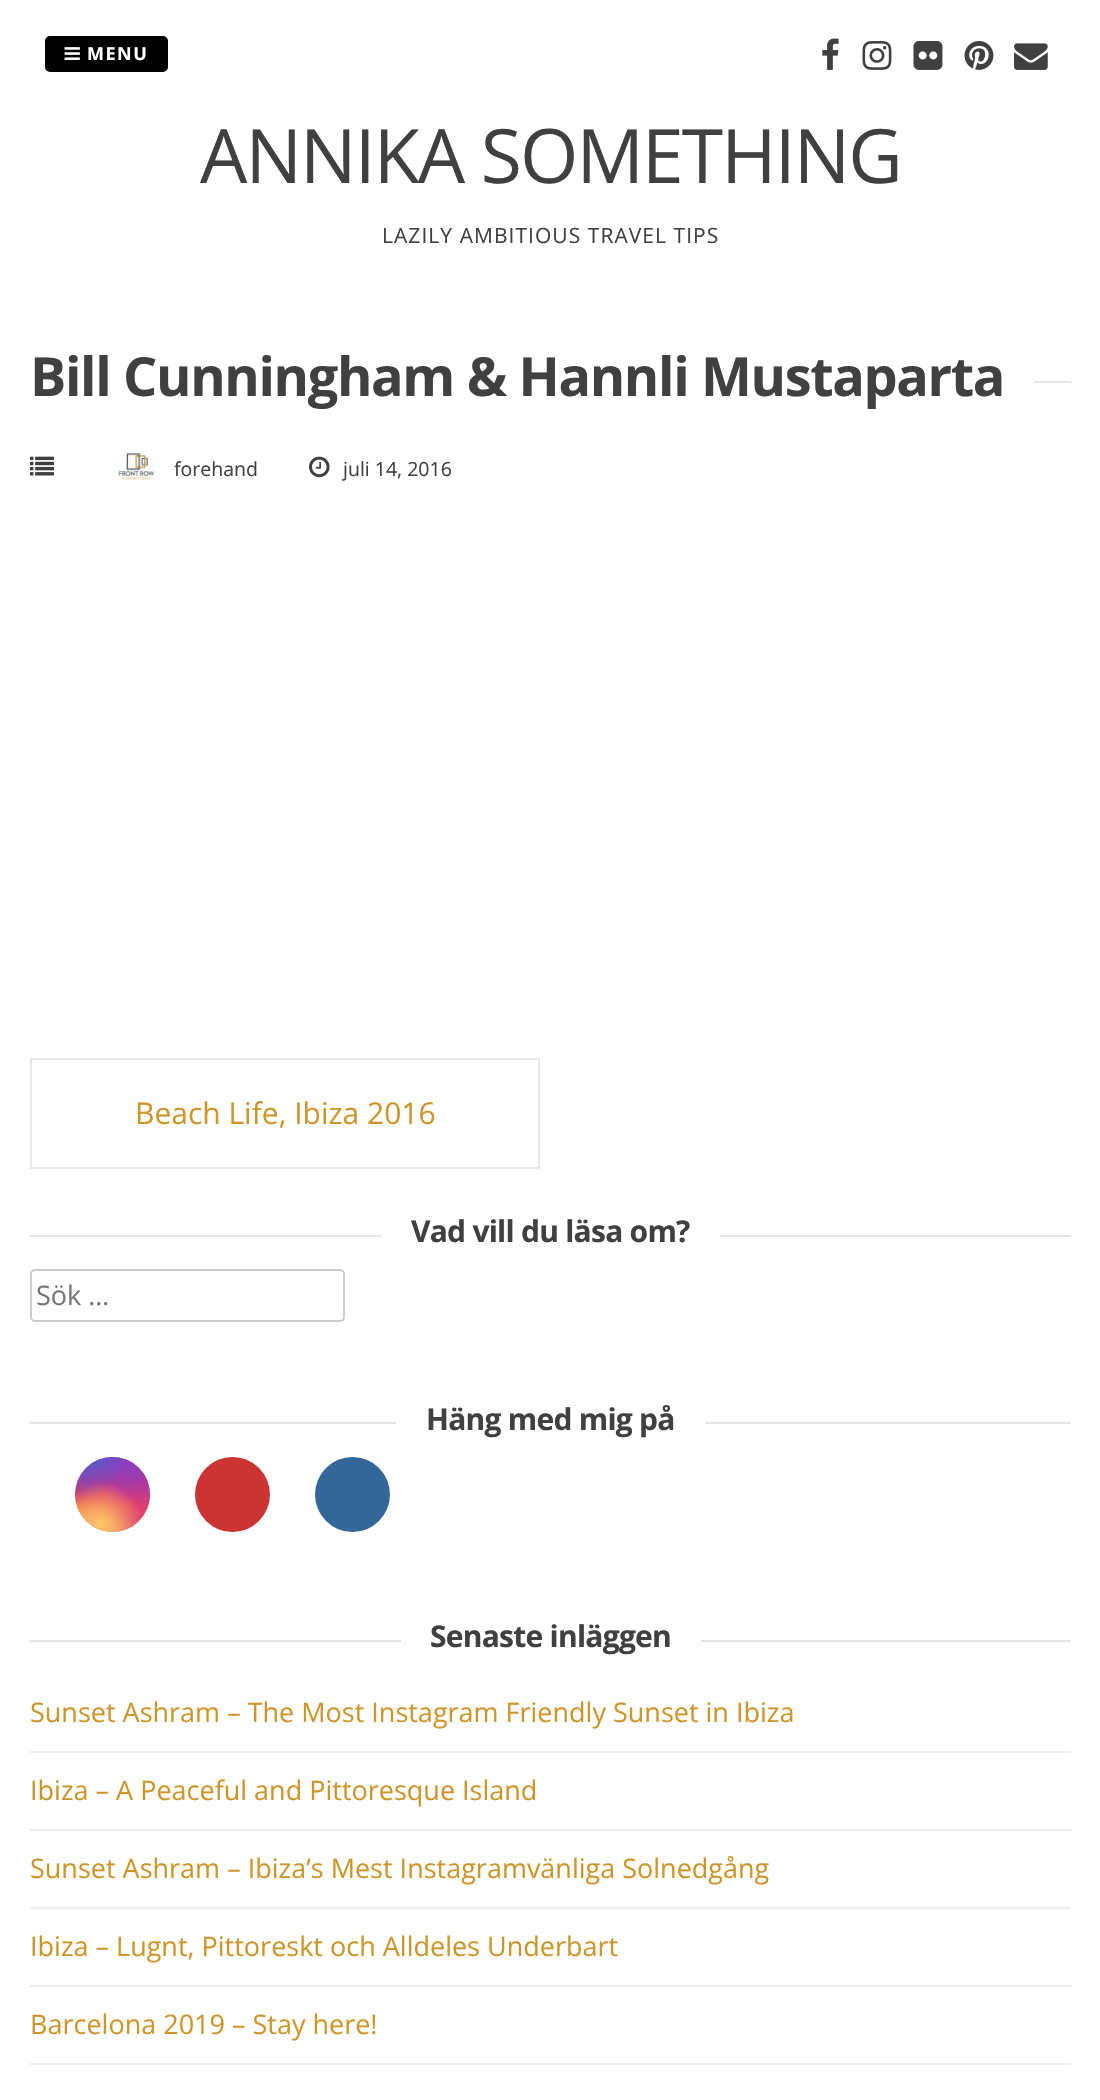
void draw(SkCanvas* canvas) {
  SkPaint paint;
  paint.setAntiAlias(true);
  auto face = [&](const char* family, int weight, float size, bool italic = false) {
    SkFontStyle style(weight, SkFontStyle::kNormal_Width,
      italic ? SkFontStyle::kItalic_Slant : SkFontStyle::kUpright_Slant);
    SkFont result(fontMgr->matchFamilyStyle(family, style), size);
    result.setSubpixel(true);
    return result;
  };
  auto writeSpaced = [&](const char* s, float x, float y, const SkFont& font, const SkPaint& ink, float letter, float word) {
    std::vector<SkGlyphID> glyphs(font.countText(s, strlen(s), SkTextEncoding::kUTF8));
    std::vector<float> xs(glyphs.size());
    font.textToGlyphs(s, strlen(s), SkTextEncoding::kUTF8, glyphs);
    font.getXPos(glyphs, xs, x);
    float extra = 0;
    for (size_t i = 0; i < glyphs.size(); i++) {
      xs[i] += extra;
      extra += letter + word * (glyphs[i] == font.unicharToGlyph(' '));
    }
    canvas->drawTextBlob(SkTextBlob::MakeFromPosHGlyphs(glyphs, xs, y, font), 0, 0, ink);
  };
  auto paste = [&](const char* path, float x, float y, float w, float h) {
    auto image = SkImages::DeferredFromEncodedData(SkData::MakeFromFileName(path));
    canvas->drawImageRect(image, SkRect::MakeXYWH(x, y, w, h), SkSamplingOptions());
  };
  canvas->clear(0xffffffff);
  paint.setColor(0xff000000);
  canvas->drawRoundRect(SkRect::MakeXYWH(46, 37, 121, 34), 4, 4, paint);
  paint.setStroke(true);
  paint.setStrokeWidth(2);
  canvas->drawRoundRect(SkRect::MakeXYWH(46, 37, 121, 34), 4, 4, paint);
  paste("img/1.png", 64, 47, 16, 13);
  paste("img/2.png", 822, 38, 17, 32);
  paste("img/3.png", 862, 41, 30, 29);
  paste("img/4.png", 913, 41, 30, 29);
  paste("img/5.png", 964, 41, 30, 29);
  paste("img/6.png", 1014, 43, 34, 27);
  paint.setStroke(false);
  paint.setColor(0xffe5e5e5);
  canvas->drawRect(SkRect::MakeXYWH(1034, 381, 37, 2), paint);
  paste("img/7.png", 30, 456, 24, 20);
  paste("img/8.png", 118, 453, 37, 27);
  paste("img/9.png", 309, 456, 21, 22);
  paint.setStroke(true);
  paint.setColor(0xffe6e7e8);
  canvas->drawRect(SkRect::MakeXYWH(31, 1059, 508, 109), paint);
  paint.setStroke(false);
  paint.setColor(0xffe5e5e5);
  canvas->drawRect(SkRect::MakeXYWH(30, 1235, 1041, 2), paint);
  paint.setColor(0xffffffff);
  canvas->drawRect(SkRect::MakeXYWH(381, 1235, 339, 2), paint);
  paint.setStroke(true);
  paint.setColor(0xffcccccc);
  canvas->drawRoundRect(SkRect::MakeXYWH(31, 1270, 313, 51), 4, 4, paint);
  paint.setStroke(false);
  paint.setColor(0xffe5e5e5);
  canvas->drawRect(SkRect::MakeXYWH(30, 1422, 1041, 2), paint);
  paint.setColor(0xffffffff);
  canvas->drawRect(SkRect::MakeXYWH(396, 1422, 309, 2), paint);
  {
    const SkColor colors[] = {0xff6559ca, 0xffbc318f, 0xffe33f5f, 0xfff77638, 0xfffec66d};
    const float stops[] = {0, 0.3f, 0.5f, 0.7f, 1};
    const SkPoint ends[] = {{113, 1457}, {113, 1532}};
    paint.setShader(SkGradientShader::MakeLinear(ends, colors, stops, 5, SkTileMode::kClamp));
    paint.setAlpha(255);
  }
  canvas->drawCircle(112.5f, 1494.5f, 37.5f, paint);
  {
    const SkColor colors[] = {0xffd9317a, 0x00d9317a};
    const float stops[] = {0, 1};
    paint.setShader(SkGradientShader::MakeRadial({150, 1532}, 106, colors, stops, 2, SkTileMode::kClamp));
    paint.setAlpha(255);
  }
  canvas->drawCircle(112.5f, 1494.5f, 37.5f, paint);
  {
    const SkColor colors[] = {0xff893dc2, 0x00893dc2};
    const float stops[] = {0, 0.5f};
    SkMatrix m = SkMatrix::Translate(120, 1442).preScale(64, 127);
    paint.setShader(SkGradientShader::MakeRadial({0, 0}, 1, colors, stops, 2, SkTileMode::kClamp, 0, &m));
    paint.setAlpha(255);
  }
  canvas->drawCircle(112.5f, 1494.5f, 37.5f, paint);
  {
    const SkColor colors[] = {0xff893dc2, 0x00893dc2};
    const float stops[] = {0, 0.5f};
    paint.setShader(SkGradientShader::MakeRadial({150, 1457}, 106, colors, stops, 2, SkTileMode::kClamp));
    paint.setAlpha(255);
  }
  canvas->drawCircle(112.5f, 1494.5f, 37.5f, paint);
  {
    const SkColor colors[] = {0xff5258cf, 0x005258cf};
    const float stops[] = {0, 0.5f};
    SkMatrix m = SkMatrix::Translate(90, 1419).preScale(85, 159);
    paint.setShader(SkGradientShader::MakeRadial({0, 0}, 1, colors, stops, 2, SkTileMode::kClamp, 0, &m));
    paint.setAlpha(255);
  }
  canvas->drawCircle(112.5f, 1494.5f, 37.5f, paint);
  {
    const SkColor colors[] = {0xff5258cf, 0x005258cf};
    const float stops[] = {0, 0.5f};
    SkMatrix m = SkMatrix::Translate(75, 1438).preScale(106, 133);
    paint.setShader(SkGradientShader::MakeRadial({0, 0}, 1, colors, stops, 2, SkTileMode::kClamp, 0, &m));
    paint.setAlpha(255);
  }
  canvas->drawCircle(112.5f, 1494.5f, 37.5f, paint);
  {
    const SkColor colors[] = {0xfffec564, 0x00fec564};
    const float stops[] = {0, 0.5f};
    paint.setShader(SkGradientShader::MakeRadial({75, 1562}, 129, colors, stops, 2, SkTileMode::kClamp));
    paint.setAlpha(255);
  }
  canvas->drawCircle(112.5f, 1494.5f, 37.5f, paint);
  {
    const SkColor colors[] = {0xfffec564, 0x00fec564};
    const float stops[] = {0, 0.5f};
    paint.setShader(SkGradientShader::MakeRadial({101, 1524}, 83, colors, stops, 2, SkTileMode::kClamp));
    paint.setAlpha(255);
  }
  canvas->drawCircle(112.5f, 1494.5f, 37.5f, paint);
  paint.setShader(nullptr);
  paint.setColor(0xffcc3333);
  canvas->drawCircle(232.5f, 1494.5f, 37.5f, paint);
  paint.setColor(0xff336699);
  canvas->drawCircle(352.5f, 1494.5f, 37.5f, paint);
  {
    const struct { float x, y, w, h; SkColor color; } items[] = {
      {30, 1640, 1041, 2, 0xffe5e5e5},
      {401, 1640, 300, 2, 0xffffffff},
      {30, 1751, 1041, 2, 0xffededed},
      {30, 1829, 1041, 2, 0xffededed},
      {30, 1907, 1041, 2, 0xffededed},
      {30, 1985, 1041, 2, 0xffededed},
      {30, 2063, 1041, 2, 0xffededed},
    };
    for (auto [x, y, w, h, color] : items) {
      paint.setColor(color);
      canvas->drawRect(SkRect::MakeXYWH(x, y, w, h), paint);
    }
  }
  auto f0 = face("Open Sans", 700, 18);
  paint.setColor(0xffffffff);
  writeSpaced("MENU", 87, 60, f0, paint, 1.5f, 0);
  auto f1 = face("Open Sans", 400, 75);
  paint.setColor(0xff404040);
  writeSpaced("ANNIKA SOMETHING", 200, 183, f1, paint, -1.9f, 0);
  auto f2 = face("Open Sans", 400, 21);
  writeSpaced("LAZILY AMBITIOUS TRAVEL TIPS", 382, 243, f2, paint, 1.05f, 0);
  auto f3 = face("Open Sans", 700, 54);
  writeSpaced("Bill Cunningham & Hannli Mustaparta", 30, 396, f3, paint, -1.35f, 0);
  auto f4 = face("Open Sans", 400, 19.5f);
  canvas->drawString("forehand", 174, 476, f4, paint);
  canvas->drawString("juli 14, 2016", 343, 476, f4, paint);
  auto f5 = face("Open Sans", 400, 30);
  paint.setColor(0xffcf9529);
  canvas->drawString("Beach Life, Ibiza 2016", 135, 1124, f5, paint);
  auto f6 = face("Open Sans", 700, 30);
  paint.setColor(0xff404040);
  writeSpaced("Vad vill du läsa om?", 411, 1242, f6, paint, -0.75f, 0);
  auto f7 = face("Open Sans", 400, 27);
  paint.setColor(0xff757575);
  canvas->drawString("Sök …", 36, 1305, f7, paint);
  paint.setColor(0xff404040);
  writeSpaced("Häng med mig på", 426, 1430, f6, paint, -0.75f, 0);
  writeSpaced("Senaste inläggen", 430, 1647, f6, paint, -0.75f, 0);
  paint.setColor(0xffcf9529);
  {
    const struct { const char* s; float x, y; } items[] = {
      {"Sunset Ashram – The Most Instagram Friendly Sunset in Ibiza", 30, 1722},
      {"Ibiza – A Peaceful and Pittoresque Island", 30, 1800},
      {"Sunset Ashram – Ibiza’s Mest Instagramvänliga Solnedgång", 30, 1878},
      {"Ibiza – Lugnt, Pittoreskt och Alldeles Underbart", 30, 1956},
      {"Barcelona 2019 – Stay here!", 30, 2034},
    };
    for (auto [s, x, y] : items) {
      canvas->drawString(s, x, y, f7, paint);
    }
  }
}
